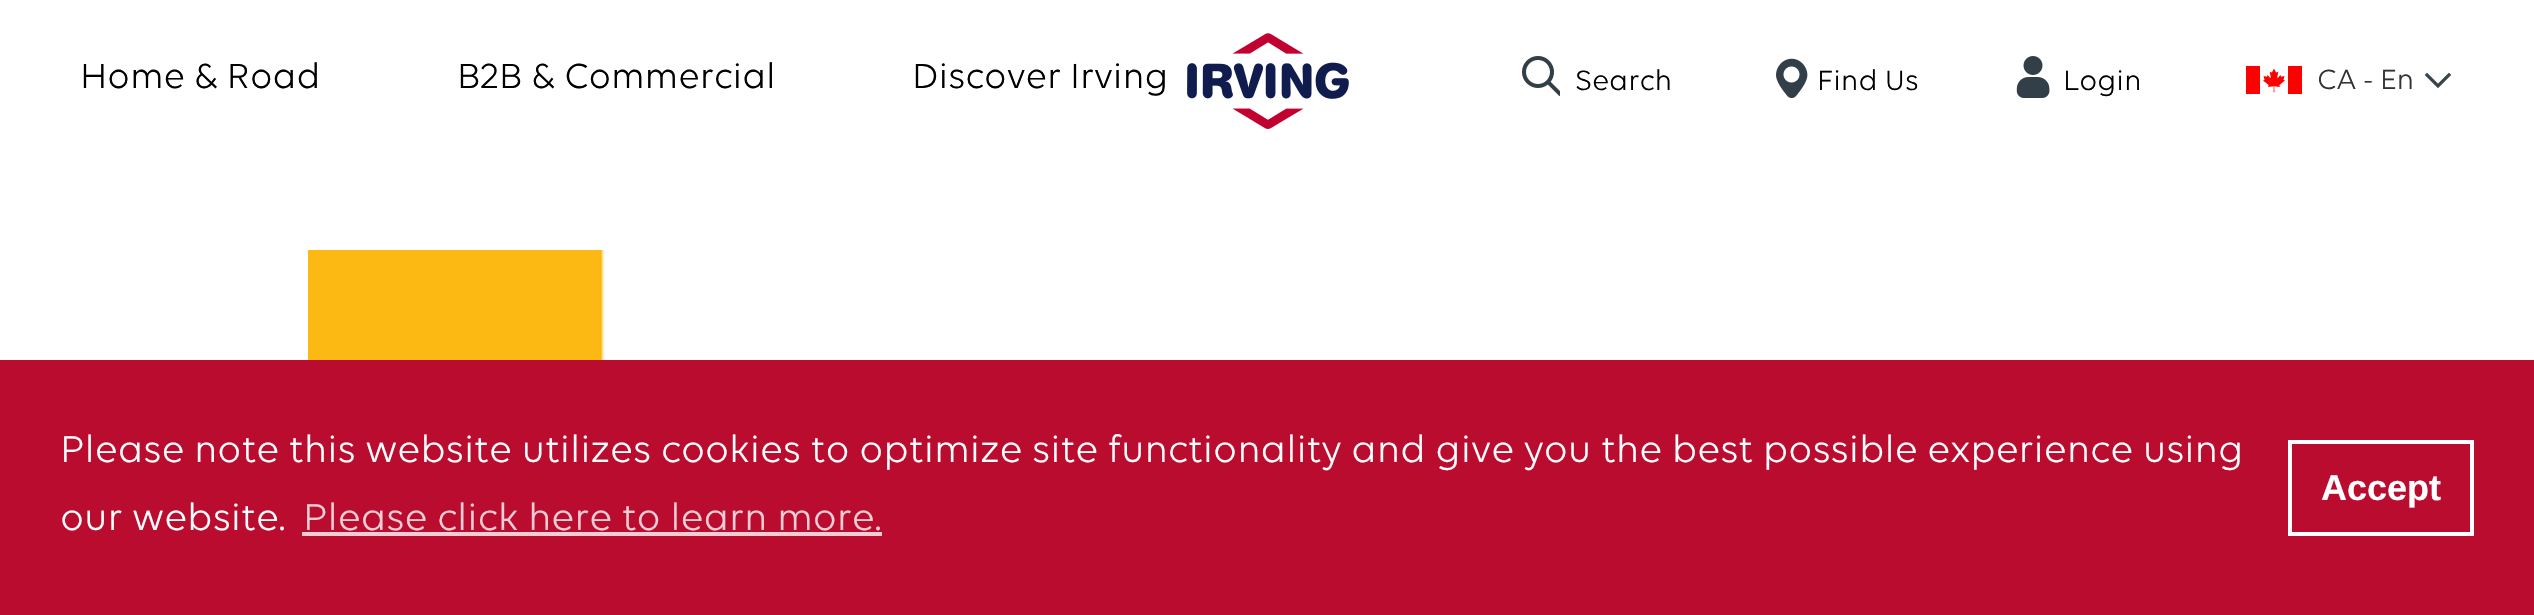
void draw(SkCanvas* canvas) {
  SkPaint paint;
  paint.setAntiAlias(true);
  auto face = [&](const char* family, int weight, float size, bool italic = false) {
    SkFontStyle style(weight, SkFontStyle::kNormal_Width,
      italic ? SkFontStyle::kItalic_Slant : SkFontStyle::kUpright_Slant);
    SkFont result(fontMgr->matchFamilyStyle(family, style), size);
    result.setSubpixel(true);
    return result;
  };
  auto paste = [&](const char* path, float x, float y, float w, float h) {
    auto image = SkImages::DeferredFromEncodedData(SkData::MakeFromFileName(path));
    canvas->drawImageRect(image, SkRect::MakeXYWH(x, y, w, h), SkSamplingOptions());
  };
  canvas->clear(0xffffffff);
  paste("img/1.png", 1187, 33, 162, 96);
  paste("img/2.png", 1522, 56, 38, 40);
  paste("img/3.png", 1776, 58, 32, 41);
  paste("img/4.png", 2016, 56, 34, 42);
  paste("img/5.png", 2246, 66, 56, 28);
  paste("img/6.png", 2424, 72, 27, 17);
  paste("img/7.png", 308, 250, 297, 110);
  paint.setColor(0xffba0c2f);
  canvas->drawRect(SkRect::MakeXYWH(0, 360, 2534, 255), paint);
  paint.setColor(0xfff1ced5);
  canvas->drawRect(SkRect::MakeXYWH(302, 532, 580, 4), paint);
  paint.setStroke(true);
  paint.setStrokeWidth(4);
  paint.setColor(0xffffffff);
  canvas->drawRect(SkRect::MakeXYWH(2290, 442, 182, 92), paint);
  auto f0 = face("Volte", 400, 37.5f);
  paint.setStroke(false);
  paint.setColor(0xff000000);
  {
    const struct { const char* s; float x, y; } items[] = {
      {"Home & Road", 80, 88},
      {"B2B & Commercial", 457, 88},
      {"Discover Irving", 912, 88},
    };
    for (auto [s, x, y] : items) {
      canvas->drawString(s, x, y, f0, paint);
    }
  }
  auto f1 = face("Volte", 400, 30);
  {
    const struct { const char* s; float x, y; } items[] = {
      {"Search", 1575, 90},
      {"Find Us", 1817, 90},
      {"Login", 2063, 90},
    };
    for (auto [s, x, y] : items) {
      canvas->drawString(s, x, y, f1, paint);
    }
  }
  paint.setColor(0xff333333);
  canvas->drawString("CA - En", 2317, 89, f1, paint);
  auto f2 = face("Volte", 400, 40);
  paint.setColor(0xffffffff);
  canvas->drawString("Please note this website utilizes cookies to optimize site functionality and give you the best possible experience using", 60, 462, f2, paint);
  canvas->drawString("our website.", 60, 530, f2, paint);
  paint.setColor(0xfff1ced5);
  canvas->drawString("Please click here to learn more.", 303, 530, f2, paint);
  auto f3 = face("Liberation Sans", 700, 36);
  paint.setColor(0xffffffff);
  canvas->drawString("Accept", 2321, 500, f3, paint);
}
